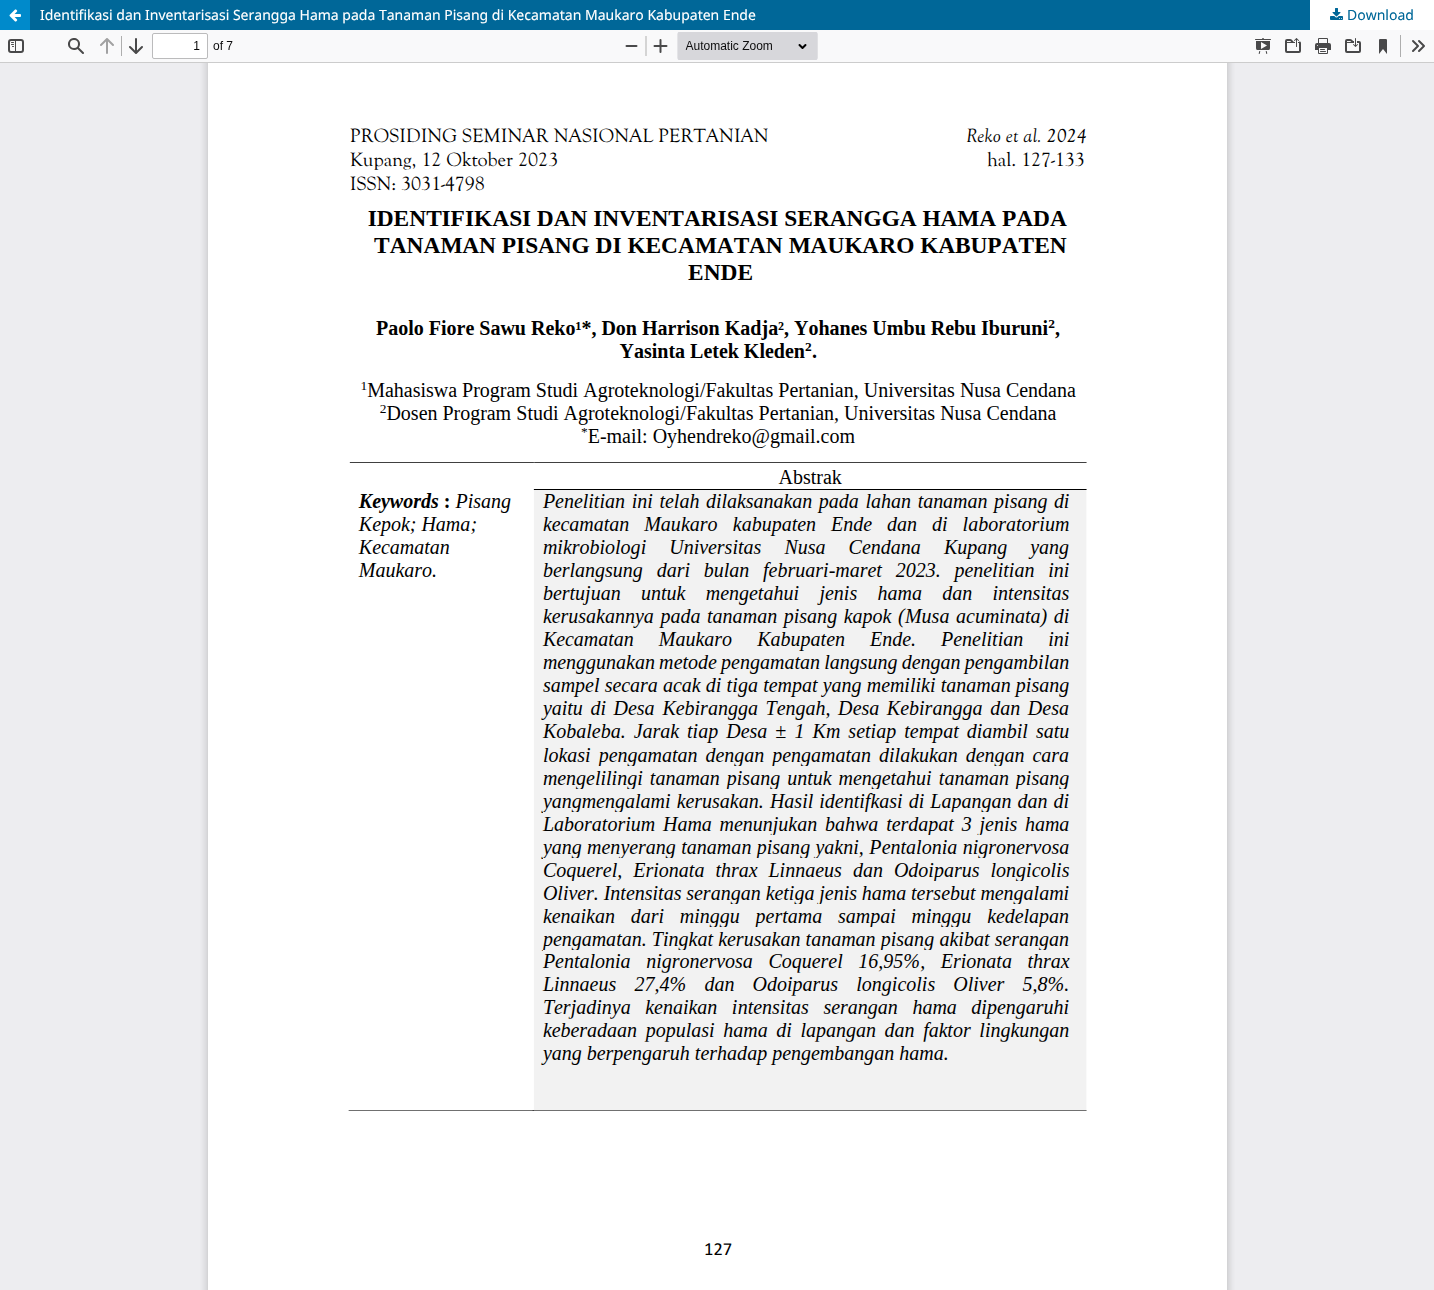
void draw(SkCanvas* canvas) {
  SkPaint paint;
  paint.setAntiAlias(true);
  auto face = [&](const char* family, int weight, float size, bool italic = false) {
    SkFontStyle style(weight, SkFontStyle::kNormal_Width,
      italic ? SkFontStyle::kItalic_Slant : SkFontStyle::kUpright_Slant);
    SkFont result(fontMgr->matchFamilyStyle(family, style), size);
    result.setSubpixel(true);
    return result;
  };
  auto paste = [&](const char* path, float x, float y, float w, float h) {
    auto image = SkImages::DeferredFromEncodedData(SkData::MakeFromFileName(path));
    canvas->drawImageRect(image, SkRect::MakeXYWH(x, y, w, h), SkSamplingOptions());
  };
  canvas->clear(0xffffffff);
  paint.setColor(0xff006798);
  canvas->drawRect(SkRect::MakeXYWH(30, 0, 1280, 30), paint);
  paint.setColor(0xff008acb);
  canvas->drawRect(SkRect::MakeXYWH(0, 0, 30, 30), paint);
  paste("img/1.png", 9, 9, 12, 13);
  paste("img/2.png", 1330, 8, 13, 12);
  paste("img/3.png", 0, 30, 1434, 1260);
  auto f0 = face("Noto Sans", 400, 14);
  paint.setColor(0xffffffff);
  canvas->drawString("Identifikasi dan Inventarisasi Serangga Hama pada Tanaman Pisang di Kecamatan Maukaro Kabupaten Ende", 40, 20, f0, paint);
  paint.setColor(0xff006798);
  canvas->drawString("Download", 1347, 20, f0, paint);
}
